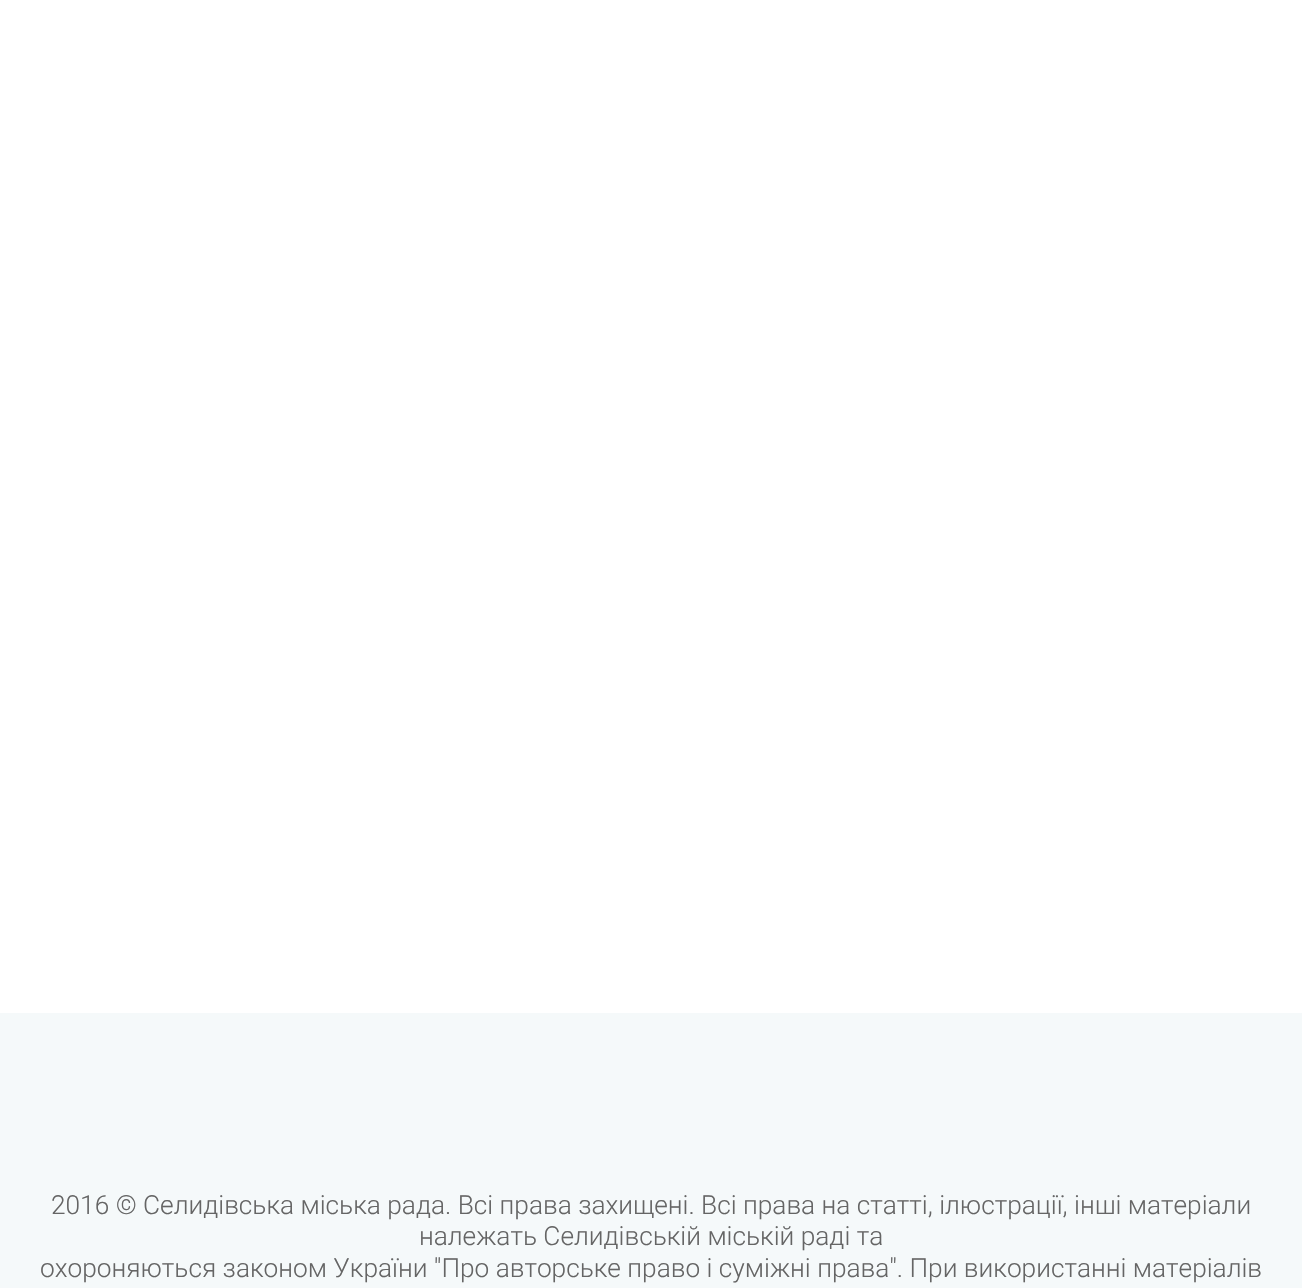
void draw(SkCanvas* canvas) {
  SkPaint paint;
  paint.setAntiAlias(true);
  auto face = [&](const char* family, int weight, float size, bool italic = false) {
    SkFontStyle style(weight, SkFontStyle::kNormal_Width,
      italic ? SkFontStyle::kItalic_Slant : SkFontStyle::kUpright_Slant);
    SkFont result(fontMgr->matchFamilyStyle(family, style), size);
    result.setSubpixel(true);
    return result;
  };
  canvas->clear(0xffffffff);
  paint.setColor(0xfff5f9fa);
  canvas->drawRect(SkRect::MakeXYWH(0, 1013, 1302, 275), paint);
  auto f0 = face("Roboto", 300, 26.25f);
  paint.setColor(0xff656565);
  {
    const struct { const char* s; float x, y; } items[] = {
      {"2016 © Селидівська міська рада. Всі права захищені. Всі права на статті, ілюстрації, інші матеріали", 51, 1214},
      {"належать Селидівській міській раді та", 419, 1245},
      {"охороняються законом України \"Про авторське право і суміжні права\". При використанні матеріалів", 40, 1277},
    };
    for (auto [s, x, y] : items) {
      canvas->drawString(s, x, y, f0, paint);
    }
  }
}
